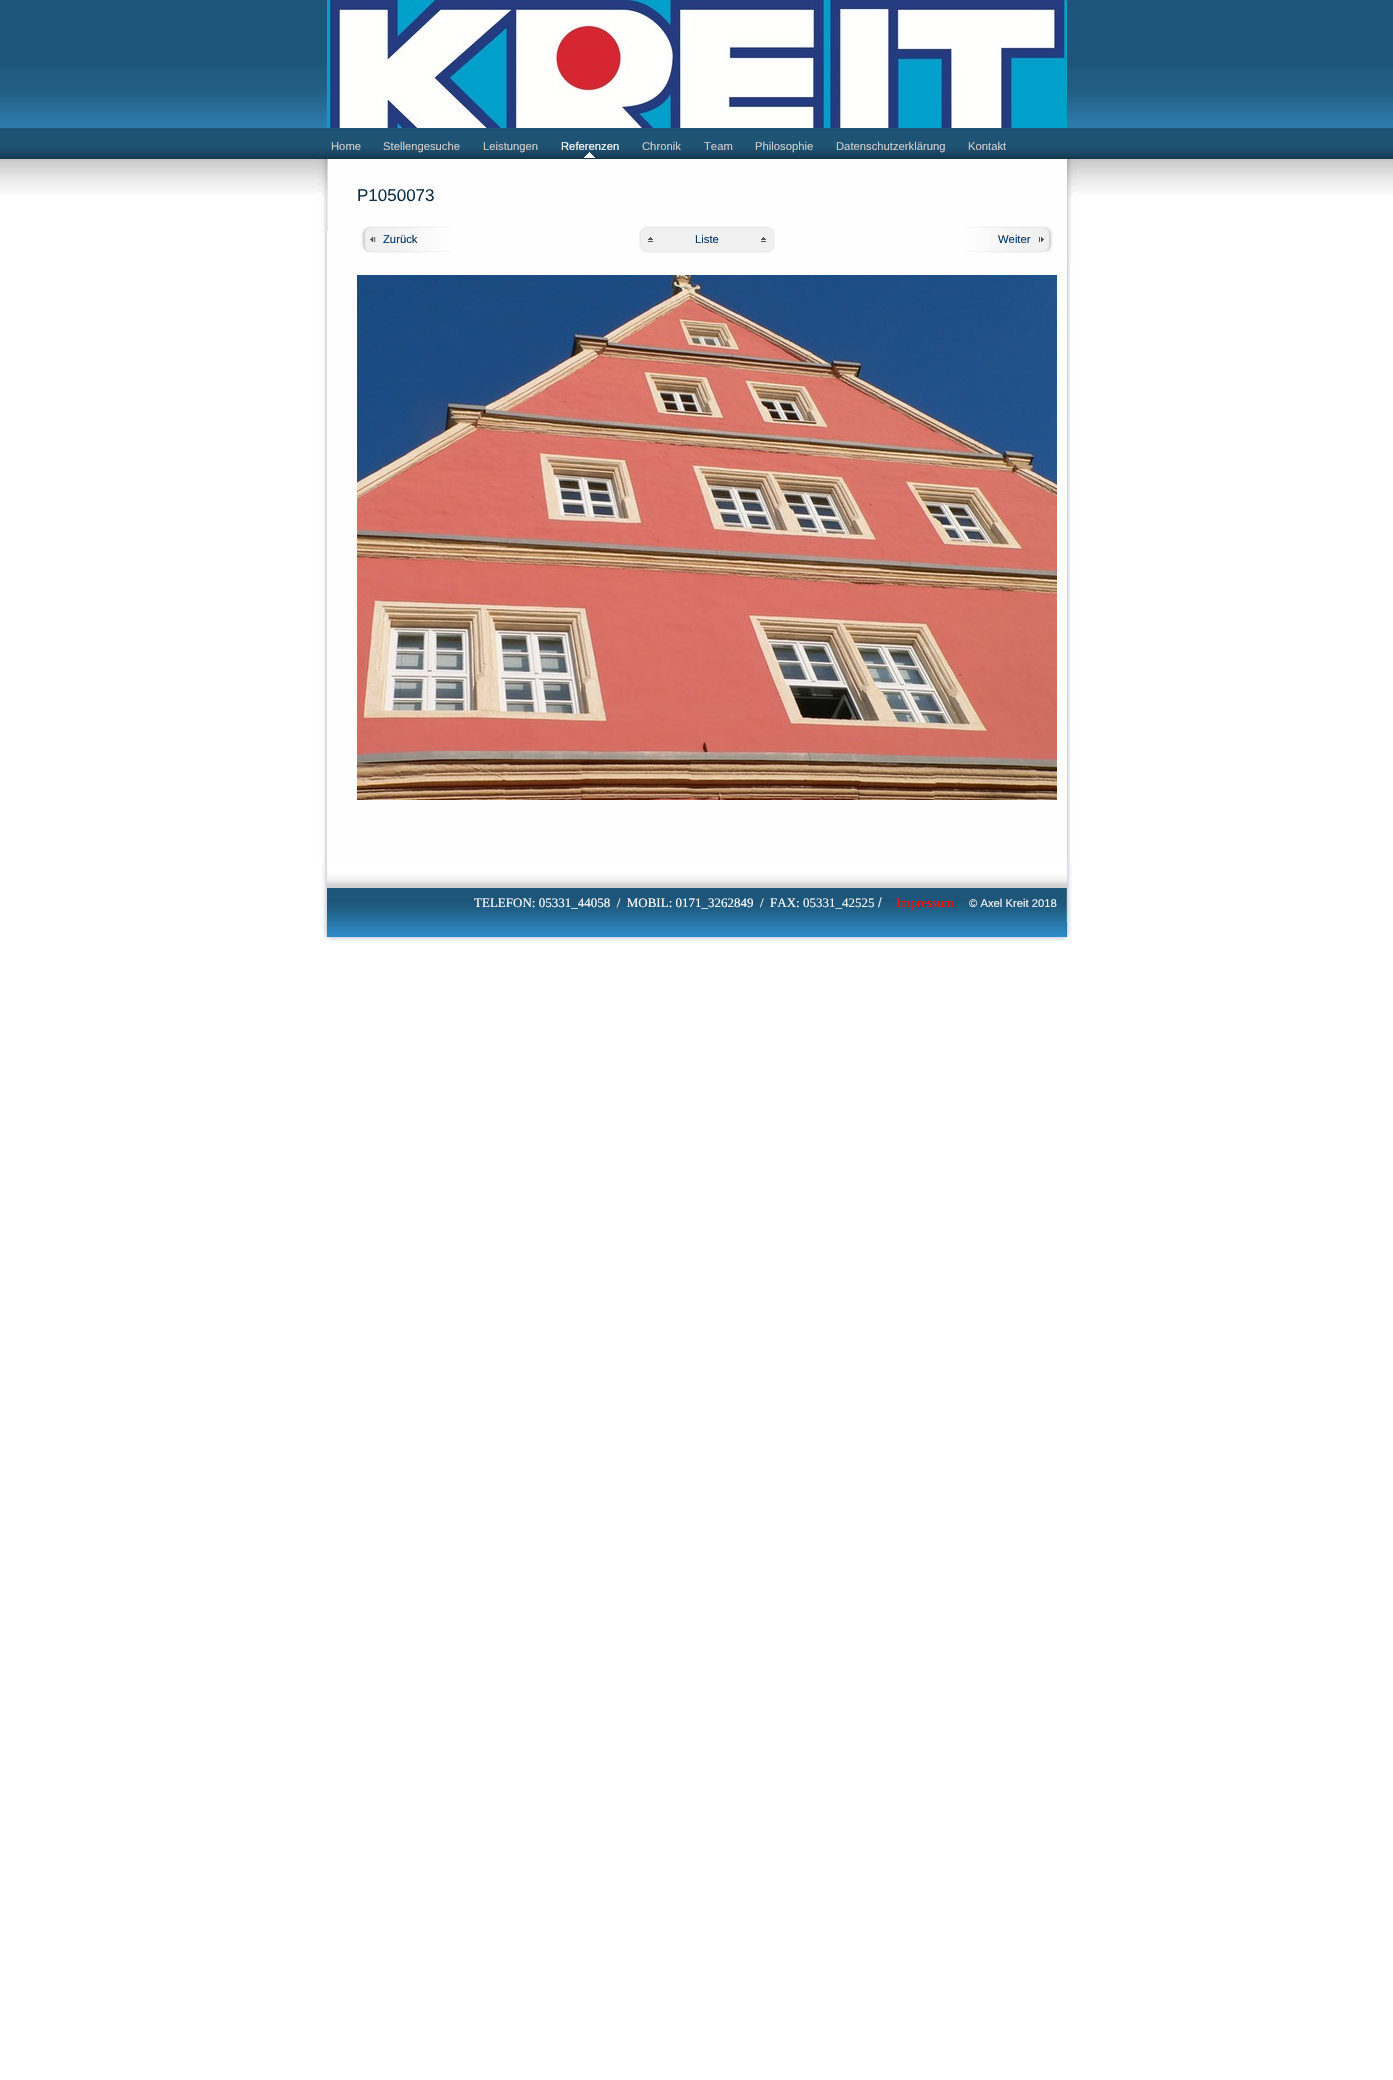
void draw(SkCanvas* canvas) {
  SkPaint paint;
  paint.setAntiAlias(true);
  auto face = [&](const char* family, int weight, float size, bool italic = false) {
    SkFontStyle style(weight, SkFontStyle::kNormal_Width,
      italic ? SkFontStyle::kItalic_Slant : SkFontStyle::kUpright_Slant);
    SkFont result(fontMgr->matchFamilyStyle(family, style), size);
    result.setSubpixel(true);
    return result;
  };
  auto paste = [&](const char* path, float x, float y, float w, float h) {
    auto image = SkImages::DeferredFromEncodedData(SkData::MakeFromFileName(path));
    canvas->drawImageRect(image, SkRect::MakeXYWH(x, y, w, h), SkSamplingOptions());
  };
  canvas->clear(0xffffffff);
  paste("img/1.png", 0, 159, 1393, 35);
  paint.setColor(0xff1d567a);
  canvas->drawRect(SkRect::MakeXYWH(0, 0, 1393, 129), paint);
  paste("img/2.png", 0, 68, 1393, 60);
  paste("img/3.png", 327, 0, 740, 128);
  paste("img/4.png", 0, 129, 1393, 30);
  paste("img/5.png", 584, 152, 11, 6);
  paste("img/6.png", 317, 159, 760, 704);
  paste("img/7.png", 317, 159, 11, 72);
  paste("img/8.png", 361, 226, 90, 27);
  paste("img/9.png", 639, 226, 136, 27);
  paste("img/10.png", 964, 226, 89, 27);
  paste("img/11.png", 357, 275, 700, 525);
  paste("img/12.png", 322, 863, 750, 79);
  auto f0 = face("Liberation Sans", 400, 11.25f);
  paint.setColor(0xffcccccc);
  {
    const struct { const char* s; float x, y; } items[] = {
      {"Home", 331, 150},
      {"Stellengesuche", 383, 150},
      {"Leistungen", 483, 150},
    };
    for (auto [s, x, y] : items) {
      canvas->drawString(s, x, y, f0, paint);
    }
  }
  paint.setColor(0xffffffff);
  canvas->drawString("Referenzen", 561, 150, f0, paint);
  paint.setColor(0xffcccccc);
  {
    const struct { const char* s; float x, y; } items[] = {
      {"Chronik", 642, 150},
      {"Team", 704, 150},
      {"Philosophie", 755, 150},
      {"Datenschutzerklärung", 836, 150},
      {"Kontakt", 968, 150},
    };
    for (auto [s, x, y] : items) {
      canvas->drawString(s, x, y, f0, paint);
    }
  }
  auto f1 = face("Liberation Sans", 400, 17);
  paint.setColor(0xff0e2f43);
  canvas->drawString("P1050073", 357, 201, f1, paint);
  paint.setColor(0xff003366);
  {
    const struct { const char* s; float x, y; } items[] = {
      {"Zurück", 383, 243},
      {"Liste", 695, 243},
      {"Weiter", 998, 243},
    };
    for (auto [s, x, y] : items) {
      canvas->drawString(s, x, y, f0, paint);
    }
  }
  auto f2 = face("Liberation Serif", 400, 13);
  paint.setColor(0xffffffff);
  canvas->drawString("TELEFON: 05331_44058  /  MOBIL: 0171_3262849  /  FAX:", 474, 907, f2, paint);
  paint.setColor(0xfff5f5f5);
  canvas->drawString("05331_42525", 803, 907, f2, paint);
  auto f3 = face("Liberation Sans", 400, 13);
  paint.setColor(0xffd8e6ef);
  canvas->drawString("/", 878, 907, f3, paint);
  paint.setColor(0xffff0f00);
  canvas->drawString("Impressum", 896, 907, f2, paint);
  paint.setColor(0xfff5f5f5);
  canvas->drawString("© Axel Kreit 2018", 969, 907, f0, paint);
}
